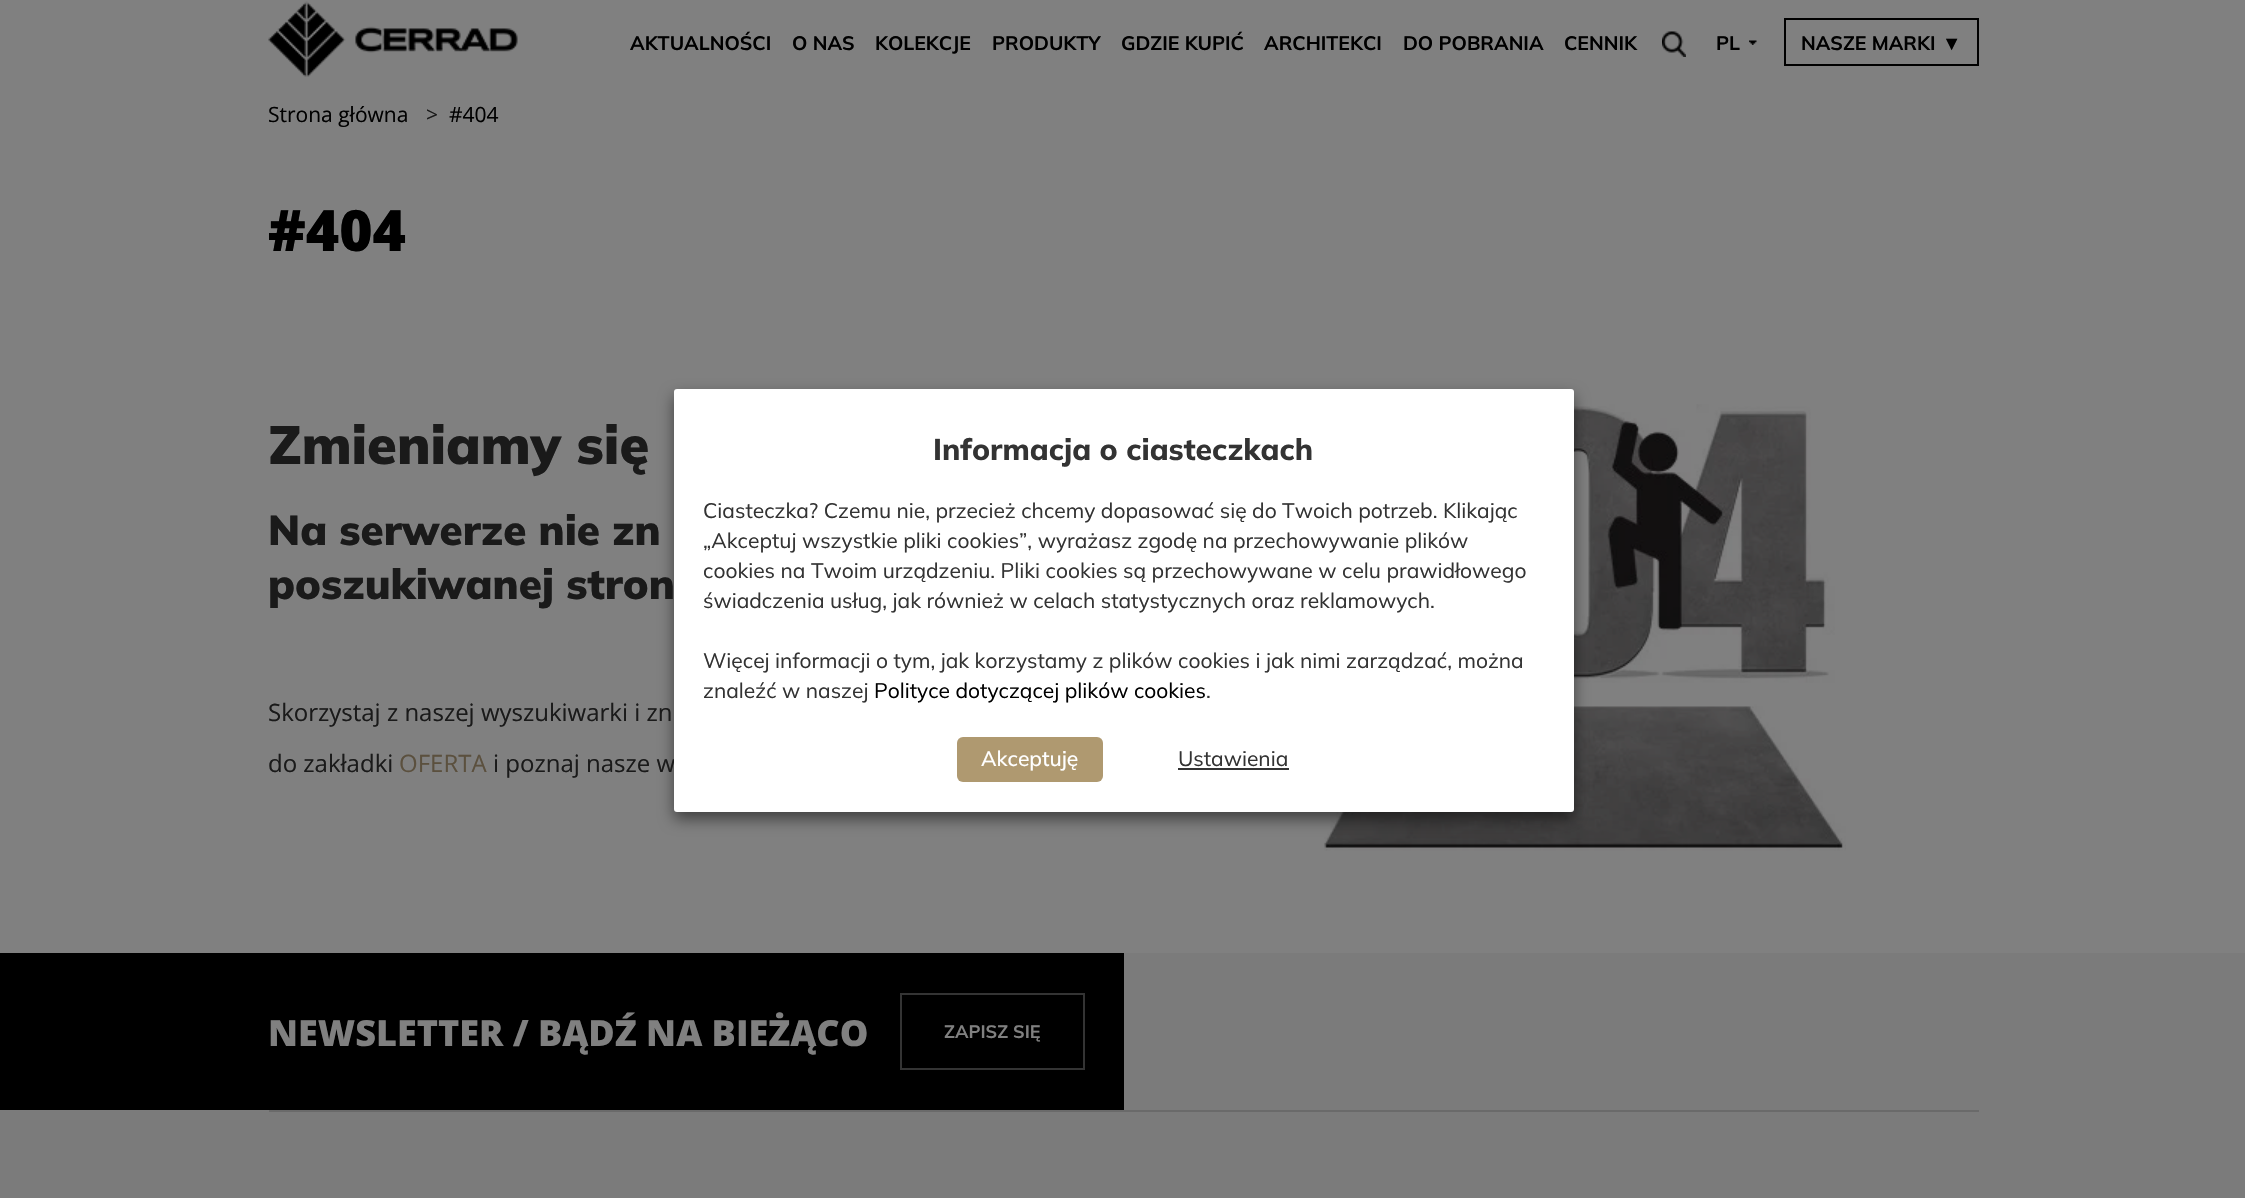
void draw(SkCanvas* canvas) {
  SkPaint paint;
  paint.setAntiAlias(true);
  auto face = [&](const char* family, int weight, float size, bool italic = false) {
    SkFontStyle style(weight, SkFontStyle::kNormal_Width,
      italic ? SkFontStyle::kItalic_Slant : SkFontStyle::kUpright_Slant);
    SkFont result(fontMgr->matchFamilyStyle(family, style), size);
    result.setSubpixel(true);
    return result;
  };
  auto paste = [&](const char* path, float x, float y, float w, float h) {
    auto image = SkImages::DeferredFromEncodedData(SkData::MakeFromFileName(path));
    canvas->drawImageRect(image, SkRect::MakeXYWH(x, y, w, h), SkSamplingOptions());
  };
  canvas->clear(0xff808080);
  paste("img/1.png", 268, 1, 250, 76);
  paste("img/2.png", 1662, 31, 24, 26);
  paste("img/3.png", 1749, 40, 8, 5);
  paint.setStroke(true);
  paint.setStrokeWidth(2);
  paint.setColor(0xff000000);
  canvas->drawRect(SkRect::MakeXYWH(1785, 19, 193, 46), paint);
  paste("img/4.png", 1324, 404, 522, 447);
  paint.setStroke(false);
  paint.setColor(0xff7b7b7b);
  canvas->drawRect(SkRect::MakeXYWH(0, 953, 2245, 245), paint);
  paint.setColor(0xff000000);
  canvas->drawRect(SkRect::MakeXYWH(0, 953, 1124, 157), paint);
  paint.setStroke(true);
  paint.setColor(0xff343434);
  canvas->drawRect(SkRect::MakeXYWH(901, 994, 183, 75), paint);
  paint.setStroke(false);
  paint.setColor(0xff6a6a6a);
  canvas->drawRect(SkRect::MakeXYWH(269, 1110, 1710, 2), paint);
  paint.setColor(0x80000000);
  paint.setMaskFilter(SkMaskFilter::MakeBlur(kNormal_SkBlurStyle, 7.5f));
  canvas->drawRoundRect(SkRect::MakeXYWH(674, 396, 900, 423), 3, 3, paint);
  paint.setMaskFilter(nullptr);
  auto f0 = face("Mulish", 700, 19.5f);
  paint.setColor(0xff000000);
  {
    const struct { const char* s; float x, y; } items[] = {
      {"AKTUALNOŚCI", 630, 50},
      {"O NAS", 792, 50},
      {"KOLEKCJE", 875, 50},
      {"PRODUKTY", 992, 50},
      {"GDZIE KUPIĆ", 1121, 50},
      {"ARCHITEKCI", 1264, 50},
      {"DO POBRANIA", 1403, 50},
      {"CENNIK", 1564, 50},
      {"PL", 1716, 50},
      {"NASZE MARKI", 1801, 50},
    };
    for (auto [s, x, y] : items) {
      canvas->drawString(s, x, y, f0, paint);
    }
  }
  auto f1 = face("Liberation Sans", 700, 19.5f);
  canvas->drawString("▼", 1942, 50, f1, paint);
  auto f2 = face("Open Sans", 400, 21);
  canvas->drawString("Strona główna", 268, 122, f2, paint);
  paint.setColor(0xff1a1a1a);
  canvas->drawString(">", 426, 122, f2, paint);
  paint.setColor(0xff000000);
  canvas->drawString("#404", 449, 122, f2, paint);
  auto f3 = face("Open Sans", 800, 57);
  canvas->drawString("#404", 268, 251, f3, paint);
  auto f4 = face("Mulish", 900, 54);
  paint.setColor(0xff1a1a1a);
  canvas->drawString("Zmieniamy się", 268, 464, f4, paint);
  auto f5 = face("Mulish", 900, 42);
  canvas->drawString("Na serwerze nie zn", 268, 545, f5, paint);
  canvas->drawString("poszukiwanej stron", 268, 599, f5, paint);
  auto f6 = face("Open Sans", 400, 24);
  canvas->drawString("Skorzystaj z naszej wyszukiwarki i zn", 268, 721, f6, paint);
  canvas->drawString("do zakładki", 268, 772, f6, paint);
  paint.setColor(0xff5b503e);
  canvas->drawString("OFERTA", 399, 772, f6, paint);
  paint.setColor(0xff1a1a1a);
  canvas->drawString("i poznaj nasze w", 493, 772, f6, paint);
  auto f7 = face("Open Sans", 800, 36);
  paint.setColor(0xff808080);
  canvas->drawString("NEWSLETTER / BĄDŹ NA BIEŻĄCO", 268, 1046, f7, paint);
  auto f8 = face("Mulish", 700, 18);
  canvas->drawString("ZAPISZ SIĘ", 944, 1038, f8, paint);
  paint.setColor(0xffffffff);
  canvas->drawRoundRect(SkRect::MakeXYWH(674, 389, 900, 423), 3, 3, paint);
  auto f9 = face("Mulish", 800, 30);
  paint.setColor(0xff333333);
  canvas->drawString("Informacja o ciasteczkach", 933, 460, f9, paint);
  auto f10 = face("Mulish", 400, 21);
  {
    const struct { const char* s; float x, y; } items[] = {
      {"Ciasteczka? Czemu nie, przecież chcemy dopasować się do Twoich potrzeb. Klikając", 703, 518},
      {"„Akceptuj wszystkie pliki cookies”, wyrażasz zgodę na przechowywanie plików", 703, 548},
      {"cookies na Twoim urządzeniu. Pliki cookies są przechowywane w celu prawidłowego", 703, 578},
      {"świadczenia usług, jak również w celach statystycznych oraz reklamowych.", 703, 608},
      {"Więcej informacji o tym, jak korzystamy z plików cookies i jak nimi zarządzać, można", 703, 668},
      {"znaleźć w naszej", 703, 698},
    };
    for (auto [s, x, y] : items) {
      canvas->drawString(s, x, y, f10, paint);
    }
  }
  paint.setColor(0xff000000);
  canvas->drawString("Polityce dotyczącej plików cookies", 874, 698, f10, paint);
  paint.setColor(0xff333333);
  canvas->drawString(".", 1206, 698, f10, paint);
  paint.setColor(0xffaf9970);
  canvas->drawRoundRect(SkRect::MakeXYWH(957, 737, 146, 45), 6, 6, paint);
  auto f11 = face("Mulish", 500, 21);
  paint.setColor(0xffffffff);
  canvas->drawString("Akceptuję", 981, 766, f11, paint);
  paint.setColor(0xff333333);
  canvas->drawString("Ustawienia", 1178, 766, f10, paint);
  canvas->drawRect(SkRect::MakeXYWH(1178, 768, 111, 2), paint);
}
